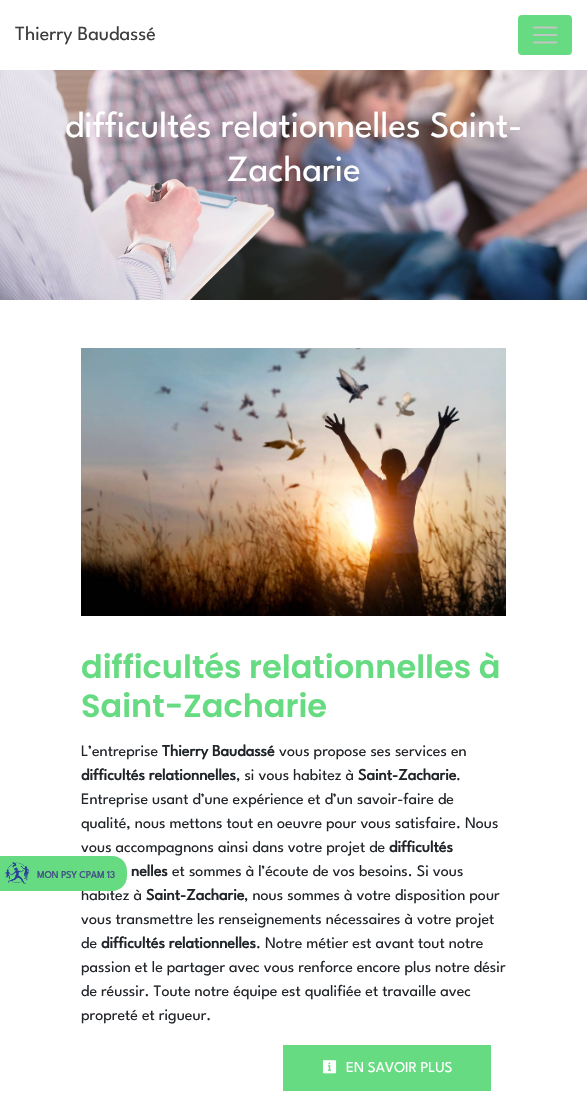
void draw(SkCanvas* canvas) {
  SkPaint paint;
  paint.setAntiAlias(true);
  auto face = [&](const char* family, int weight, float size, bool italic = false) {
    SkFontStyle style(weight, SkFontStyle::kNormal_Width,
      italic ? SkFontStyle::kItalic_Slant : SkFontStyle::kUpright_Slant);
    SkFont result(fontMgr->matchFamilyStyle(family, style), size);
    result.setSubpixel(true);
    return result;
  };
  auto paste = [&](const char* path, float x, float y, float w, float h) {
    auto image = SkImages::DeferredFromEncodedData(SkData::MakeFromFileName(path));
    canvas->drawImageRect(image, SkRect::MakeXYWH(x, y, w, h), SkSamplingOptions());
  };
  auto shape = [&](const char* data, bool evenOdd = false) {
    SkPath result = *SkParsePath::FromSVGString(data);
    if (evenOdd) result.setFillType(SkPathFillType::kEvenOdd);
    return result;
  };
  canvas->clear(0xffffffff);
  paint.setColor(0xff66db81);
  canvas->drawRoundRect(SkRect::MakeXYWH(518, 15, 54, 40), 4, 4, paint);
  paste("img/1.png", 532, 26, 26, 18);
  paste("img/2.png", 0, 70, 587, 230);
  paste("img/3.png", 81, 348, 425, 268);
  canvas->drawRect(SkRect::MakeXYWH(283, 1045, 208, 46), paint);
  paste("img/4.png", 322, 1060, 15, 14);
  auto f0 = face("League Spartan", 100, 20);
  paint.setColor(0xff3e3e3e);
  canvas->drawString("Thierry Baudassé", 15, 40, f0, paint);
  auto f1 = face("League Spartan", 100, 36.75f);
  paint.setColor(0xffffffff);
  canvas->drawString("difficultés relationnelles Saint-", 65, 137, f1, paint);
  canvas->drawString("Zacharie", 227, 181, f1, paint);
  auto f2 = face("Poppins", 600, 32);
  paint.setColor(0xff66db81);
  canvas->drawString("difficultés relationnelles à", 81, 678, f2, paint);
  canvas->drawString("Saint-Zacharie", 81, 717, f2, paint);
  auto f3 = face("League Spartan", 100, 16);
  paint.setColor(0xff212529);
  canvas->drawString("L’entreprise", 81, 756, f3, paint);
  auto f4 = face("League Spartan", 700, 16);
  canvas->drawString("Thierry Baudassé", 162, 756, f4, paint);
  canvas->drawString("vous propose ses services en", 279, 756, f3, paint);
  canvas->drawString("difficultés relationnelles", 81, 780, f4, paint);
  canvas->drawString(", si vous habitez à", 236, 780, f3, paint);
  canvas->drawString("Saint-Zacharie", 358, 780, f4, paint);
  {
    const struct { const char* s; float x, y; } items[] = {
      {".", 456, 780},
      {"Entreprise usant d’une expérience et d’un savoir-faire de", 81, 804},
      {"qualité, nous mettons tout en oeuvre pour vous satisfaire. Nous", 81, 828},
      {"vous accompagnons ainsi dans votre projet de", 81, 852},
    };
    for (auto [s, x, y] : items) {
      canvas->drawString(s, x, y, f3, paint);
    }
  }
  canvas->drawString("difficultés", 389, 852, f4, paint);
  canvas->drawString("nelles", 131, 876, f4, paint);
  canvas->drawString("et sommes à l’écoute de vos besoins. Si vous", 172, 876, f3, paint);
  canvas->drawString("habitez à", 81, 900, f3, paint);
  canvas->drawString("Saint-Zacharie", 146, 900, f4, paint);
  {
    const struct { const char* s; float x, y; } items[] = {
      {", nous sommes à votre disposition pour", 244, 900},
      {"vous transmettre les renseignements nécessaires à votre projet", 81, 924},
      {"de", 81, 948},
    };
    for (auto [s, x, y] : items) {
      canvas->drawString(s, x, y, f3, paint);
    }
  }
  canvas->drawString("difficultés relationnelles", 101, 948, f4, paint);
  {
    const struct { const char* s; float x, y; } items[] = {
      {". Notre métier est avant tout notre", 256, 948},
      {"passion et le partager avec vous renforce encore plus notre désir", 81, 972},
      {"de réussir. Toute notre équipe est qualifiée et travaille avec", 81, 996},
      {"propreté et rigueur.", 81, 1020},
    };
    for (auto [s, x, y] : items) {
      canvas->drawString(s, x, y, f3, paint);
    }
  }
  auto f5 = face("League Spartan", 100, 15);
  paint.setColor(0xffffffff);
  canvas->drawString("EN SAVOIR PLUS", 346, 1072, f5, paint);
  paint.setColor(0xff66db81);
  canvas->drawPath(shape("M0 856H112C120.5 856 127 862.5 127 871V876C127 884.5 120.5 891 112 891H0Z"), paint);
  paste("img/5.png", 5, 862, 25, 22);
  auto f6 = face("League Spartan", 700, 10);
  paint.setColor(0xff425288);
  canvas->drawString("MON PSY CPAM 13", 37, 878, f6, paint);
}
